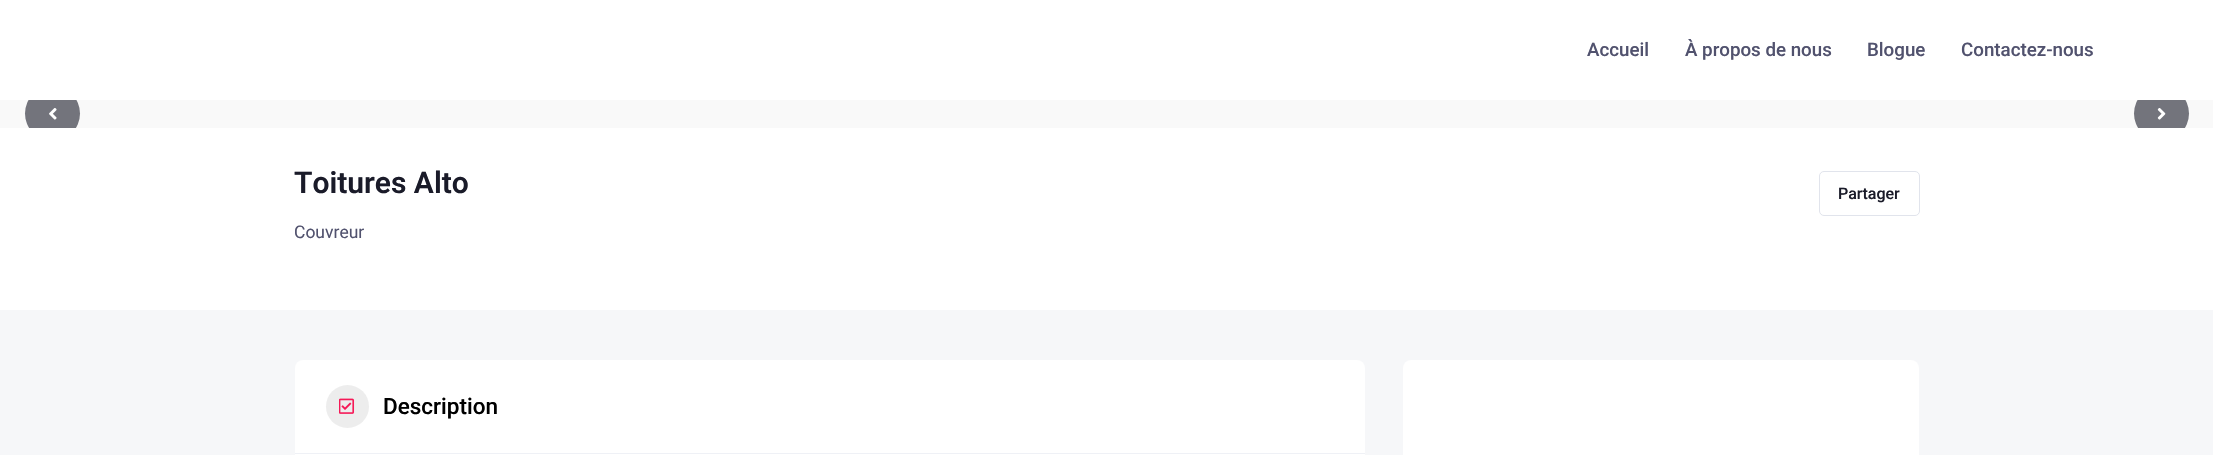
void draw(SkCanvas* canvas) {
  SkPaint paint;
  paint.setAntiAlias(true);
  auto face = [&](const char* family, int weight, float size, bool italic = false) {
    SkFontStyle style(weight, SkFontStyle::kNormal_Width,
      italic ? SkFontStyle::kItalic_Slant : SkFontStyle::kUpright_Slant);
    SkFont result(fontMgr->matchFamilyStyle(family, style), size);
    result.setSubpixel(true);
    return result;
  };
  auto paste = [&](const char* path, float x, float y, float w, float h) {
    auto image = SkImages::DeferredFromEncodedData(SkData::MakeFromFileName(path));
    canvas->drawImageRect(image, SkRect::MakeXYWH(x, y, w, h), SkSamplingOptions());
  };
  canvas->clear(0xffffffff);
  paint.setColor(0xfff9f9f9);
  canvas->drawRect(SkRect::MakeXYWH(0, 100, 2213, 28), paint);
  canvas->save();
  canvas->clipRect(SkRect::MakeXYWH(0, 100, 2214, 28));
  paint.setColor(0xff73747c);
  canvas->drawCircle(52.5f, 113.5f, 27.5f, paint);
  canvas->restore();
  paste("img/1.png", 49, 108, 8, 12);
  canvas->save();
  canvas->clipRect(SkRect::MakeXYWH(0, 100, 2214, 28));
  canvas->drawCircle(2161.5f, 113.5f, 27.5f, paint);
  canvas->restore();
  paste("img/2.png", 2157, 108, 9, 12);
  paint.setStroke(true);
  paint.setStrokeWidth(1);
  paint.setColor(0xffe1e4ec);
  canvas->drawRoundRect(SkRect::MakeXYWH(1819.5f, 171.5f, 100, 44), 4.5f, 4.5f, paint);
  paint.setStroke(false);
  paint.setColor(0xfff6f7f9);
  canvas->drawRect(SkRect::MakeXYWH(0, 310, 2213, 145), paint);
  paint.setColor(0xffffffff);
  canvas->drawRoundRect(SkRect::MakeXYWH(295, 360, 1070, 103), 8, 8, paint);
  paint.setColor(0xffeff1f6);
  canvas->drawRect(SkRect::MakeXYWH(295, 453, 1070, 1), paint);
  paint.setColor(0xffededed);
  canvas->drawCircle(347.5f, 406.5f, 21.5f, paint);
  paste("img/3.png", 339, 398, 16, 16);
  paint.setColor(0xffffffff);
  canvas->drawRoundRect(SkRect::MakeXYWH(1403, 360, 516, 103), 8, 8, paint);
  auto f0 = face("Roboto", 500, 18.75f);
  paint.setColor(0xff51526e);
  {
    const struct { const char* s; float x, y; } items[] = {
      {"Accueil", 1587, 56},
      {"À propos de nous", 1685, 56},
      {"Blogue", 1867, 56},
      {"Contactez-nous", 1961, 56},
    };
    for (auto [s, x, y] : items) {
      canvas->drawString(s, x, y, f0, paint);
    }
  }
  auto f1 = face("Roboto", 600, 30);
  paint.setColor(0xff1a1b29);
  canvas->drawString("Toitures Alto", 294, 193, f1, paint);
  auto f2 = face("Roboto", 400, 17.5f);
  paint.setColor(0xff51526e);
  canvas->drawString("Couvreur", 294, 238, f2, paint);
  auto f3 = face("Roboto", 500, 16);
  paint.setColor(0xff1a1b29);
  canvas->drawString("Partager", 1838, 199, f3, paint);
  auto f4 = face("Roboto", 500, 22.5f);
  paint.setColor(0xff000000);
  canvas->drawString("Description", 383, 414, f4, paint);
}
